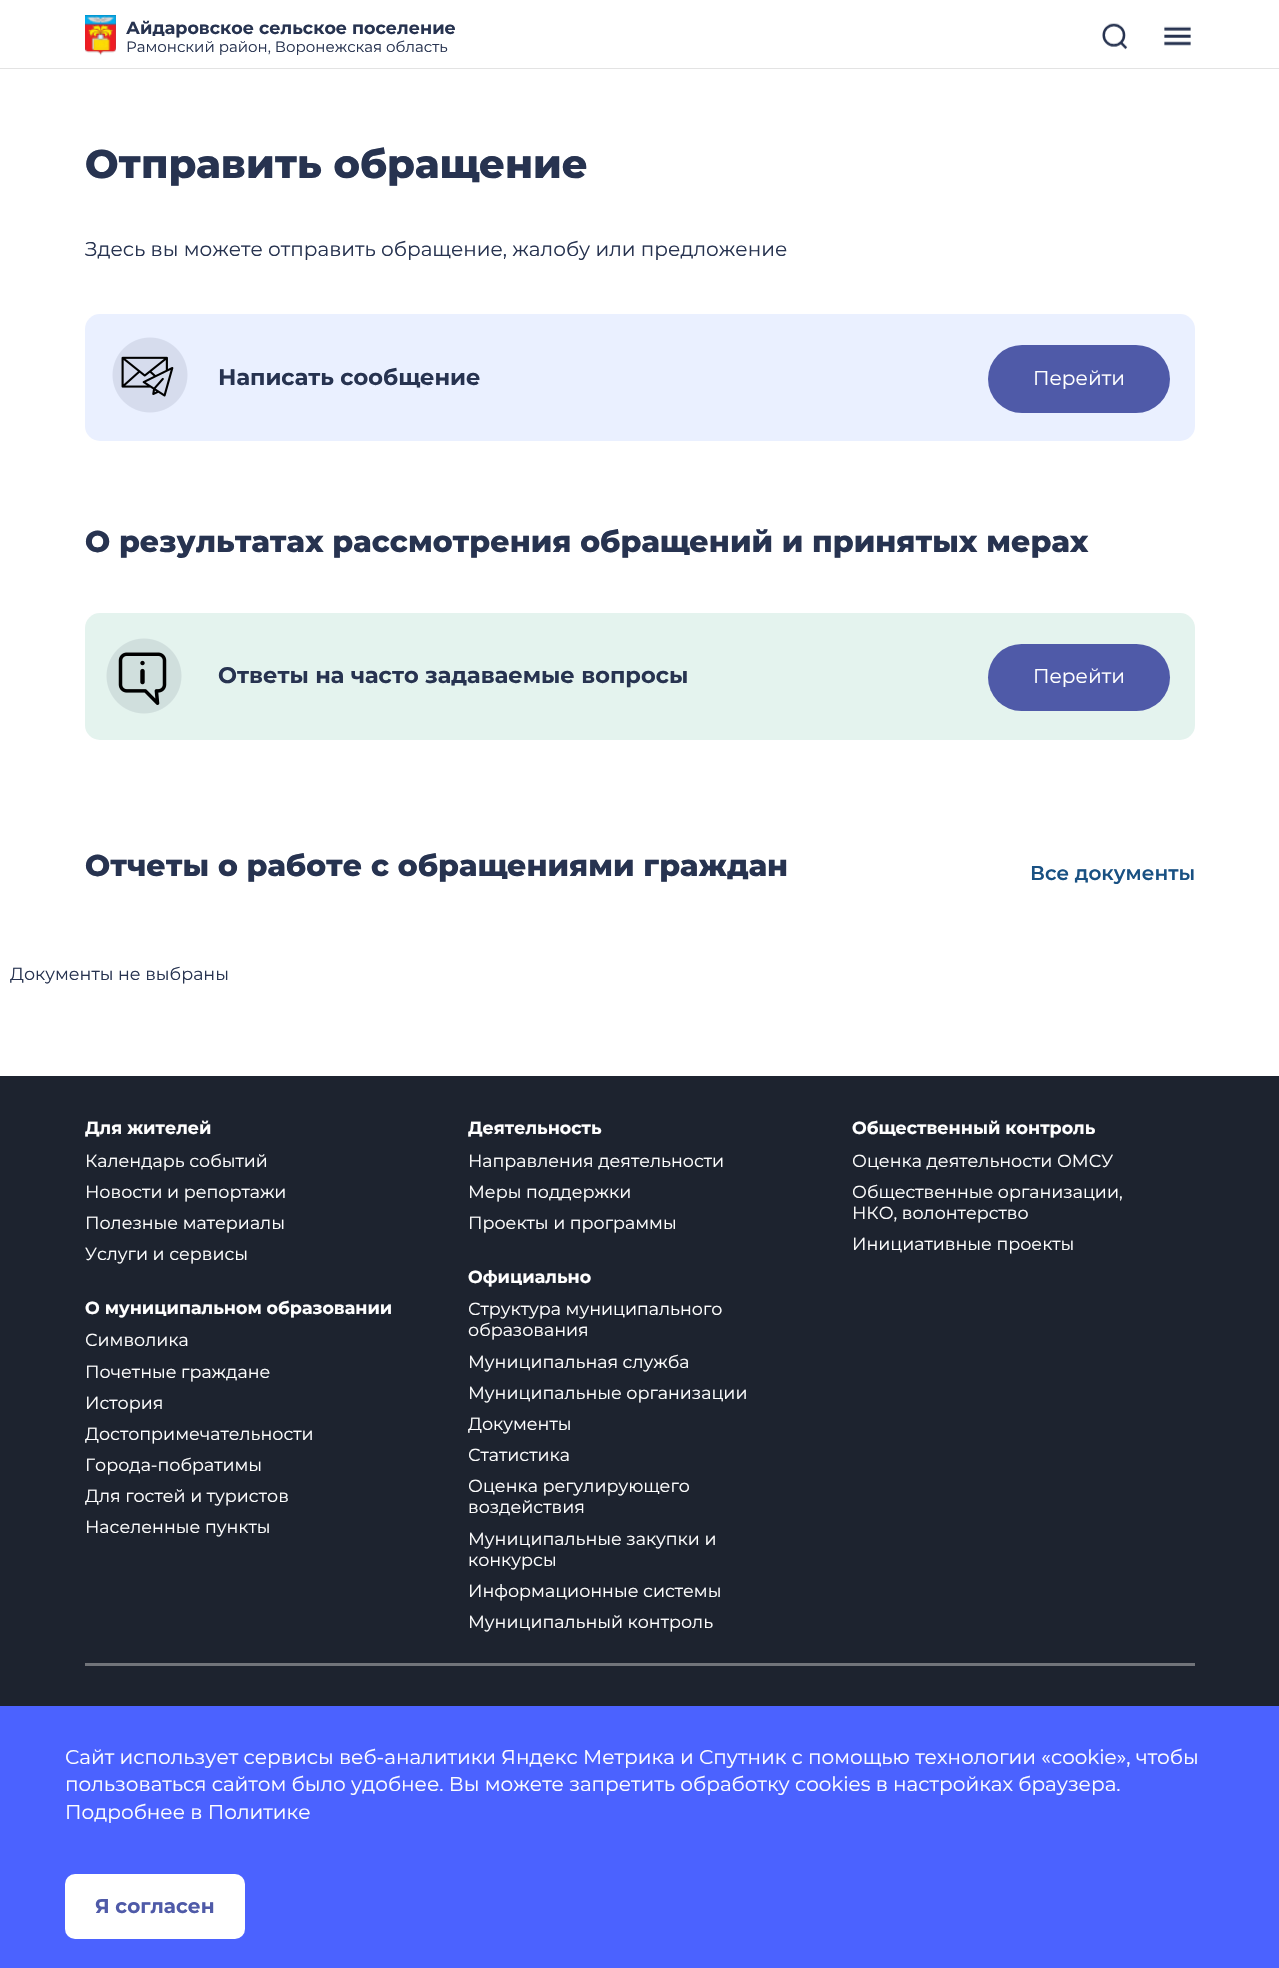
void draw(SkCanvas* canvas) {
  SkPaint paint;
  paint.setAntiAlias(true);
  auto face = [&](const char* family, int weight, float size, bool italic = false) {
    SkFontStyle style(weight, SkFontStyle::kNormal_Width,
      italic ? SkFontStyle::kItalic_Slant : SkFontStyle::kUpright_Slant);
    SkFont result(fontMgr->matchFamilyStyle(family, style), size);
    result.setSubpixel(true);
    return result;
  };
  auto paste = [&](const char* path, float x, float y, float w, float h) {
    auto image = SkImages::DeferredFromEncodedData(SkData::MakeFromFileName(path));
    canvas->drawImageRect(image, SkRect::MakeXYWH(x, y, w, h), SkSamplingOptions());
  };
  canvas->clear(0xffffffff);
  paint.setColor(0xffe3e3e3);
  canvas->drawRect(SkRect::MakeXYWH(0, 68, 1279, 1), paint);
  paste("img/1.png", 85, 15, 31, 41);
  paste("img/2.png", 1102, 23, 26, 27);
  paste("img/3.png", 1164, 26, 27, 20);
  paint.setColor(0xffeaf0ff);
  canvas->drawRoundRect(SkRect::MakeXYWH(85, 314, 1110, 127), 15, 15, paint);
  paste("img/4.png", 112, 337, 76, 76);
  paint.setColor(0xff4f5aa8);
  canvas->drawRoundRect(SkRect::MakeXYWH(988, 345, 182, 68), 34, 34, paint);
  paint.setColor(0xffe4f3ee);
  canvas->drawRoundRect(SkRect::MakeXYWH(85, 613, 1110, 127), 15, 15, paint);
  paste("img/5.png", 106, 638, 76, 76);
  paint.setColor(0xff4f5aa8);
  canvas->drawRoundRect(SkRect::MakeXYWH(988, 644, 182, 67), 33.5f, 33.5f, paint);
  {
    const struct { float x, y, w, h; SkColor color; } items[] = {
      {0, 1076, 1279, 630, 0xff1d232f},
      {85, 1663, 1110, 3, 0xff71747a},
      {0, 1706, 1279, 262, 0xff4b62ff},
    };
    for (auto [x, y, w, h, color] : items) {
      paint.setColor(color);
      canvas->drawRect(SkRect::MakeXYWH(x, y, w, h), paint);
    }
  }
  paint.setColor(0xffffffff);
  canvas->drawRoundRect(SkRect::MakeXYWH(65, 1874, 180, 65), 10, 10, paint);
  auto f0 = face("Montserrat", 700, 17.5f);
  paint.setColor(0xff273350);
  canvas->drawString("Айдаровское сельское поселение", 126, 34, f0, paint);
  auto f1 = face("Montserrat", 400, 15);
  canvas->drawString("Рамонский район, Воронежская область", 126, 52, f1, paint);
  auto f2 = face("Montserrat", 800, 40);
  canvas->drawString("Отправить обращение", 85, 178, f2, paint);
  auto f3 = face("Montserrat", 400, 20);
  canvas->drawString("Здесь вы можете отправить обращение, жалобу или предложение", 85, 256, f3, paint);
  auto f4 = face("Montserrat", 700, 22.5f);
  canvas->drawString("Написать сообщение", 218, 385, f4, paint);
  paint.setColor(0xffffffff);
  canvas->drawString("Перейти", 1033, 385, f3, paint);
  auto f5 = face("Montserrat", 800, 30);
  paint.setColor(0xff273350);
  canvas->drawString("О результатах рассмотрения обращений и принятых мерах", 85, 552, f5, paint);
  canvas->drawString("Ответы на часто задаваемые вопросы", 218, 683, f4, paint);
  paint.setColor(0xffffffff);
  canvas->drawString("Перейти", 1033, 683, f3, paint);
  paint.setColor(0xff273350);
  canvas->drawString("Отчеты о работе с обращениями граждан", 85, 876, f5, paint);
  auto f6 = face("Montserrat", 600, 20);
  paint.setColor(0xff195183);
  canvas->drawString("Все документы", 1030, 880, f6, paint);
  auto f7 = face("Montserrat", 400, 17.5f);
  paint.setColor(0xff273350);
  canvas->drawString("Документы не выбраны", 10, 980, f7, paint);
  paint.setColor(0xffffffff);
  canvas->drawString("Для жителей", 85, 1134, f0, paint);
  {
    const struct { const char* s; float x, y; } items[] = {
      {"Календарь событий", 85, 1167},
      {"Новости и репортажи", 85, 1198},
      {"Полезные материалы", 85, 1229},
      {"Услуги и сервисы", 85, 1260},
    };
    for (auto [s, x, y] : items) {
      canvas->drawString(s, x, y, f7, paint);
    }
  }
  canvas->drawString("О муниципальном образовании", 85, 1314, f0, paint);
  {
    const struct { const char* s; float x, y; } items[] = {
      {"Символика", 85, 1346},
      {"Почетные граждане", 85, 1378},
      {"История", 85, 1409},
      {"Достопримечательности", 85, 1440},
      {"Города-побратимы", 85, 1471},
      {"Для гостей и туристов", 85, 1502},
      {"Населенные пункты", 85, 1533},
    };
    for (auto [s, x, y] : items) {
      canvas->drawString(s, x, y, f7, paint);
    }
  }
  canvas->drawString("Деятельность", 468, 1134, f0, paint);
  {
    const struct { const char* s; float x, y; } items[] = {
      {"Направления деятельности", 468, 1167},
      {"Меры поддержки", 468, 1198},
      {"Проекты и программы", 468, 1229},
    };
    for (auto [s, x, y] : items) {
      canvas->drawString(s, x, y, f7, paint);
    }
  }
  canvas->drawString("Официально", 468, 1283, f0, paint);
  {
    const struct { const char* s; float x, y; } items[] = {
      {"Структура муниципального", 468, 1315},
      {"образования", 468, 1336},
      {"Муниципальная служба", 468, 1368},
      {"Муниципальные организации", 468, 1399},
      {"Документы", 468, 1430},
      {"Статистика", 468, 1461},
      {"Оценка регулирующего", 468, 1492},
      {"воздействия", 468, 1513},
      {"Муниципальные закупки и", 468, 1545},
      {"конкурсы", 468, 1566},
      {"Информационные системы", 468, 1597},
      {"Муниципальный контроль", 468, 1628},
    };
    for (auto [s, x, y] : items) {
      canvas->drawString(s, x, y, f7, paint);
    }
  }
  canvas->drawString("Общественный контроль", 852, 1134, f0, paint);
  {
    const struct { const char* s; float x, y; } items[] = {
      {"Оценка деятельности ОМСУ", 852, 1167},
      {"Общественные организации,", 852, 1198},
      {"НКО, волонтерство", 852, 1219},
      {"Инициативные проекты", 852, 1250},
    };
    for (auto [s, x, y] : items) {
      canvas->drawString(s, x, y, f7, paint);
    }
  }
  {
    const struct { const char* s; float x, y; } items[] = {
      {"Сайт использует сервисы веб-аналитики Яндекс Метрика и Спутник с помощью технологии «cookie», чтобы", 65, 1764},
      {"пользоваться сайтом было удобнее. Вы можете запретить обработку cookies в настройках браузера.", 65, 1791},
      {"Подробнее в Политике", 65, 1819},
    };
    for (auto [s, x, y] : items) {
      canvas->drawString(s, x, y, f3, paint);
    }
  }
  auto f8 = face("Montserrat", 700, 20);
  paint.setColor(0xff4f5aa8);
  canvas->drawString("Я согласен", 95, 1913, f8, paint);
}
